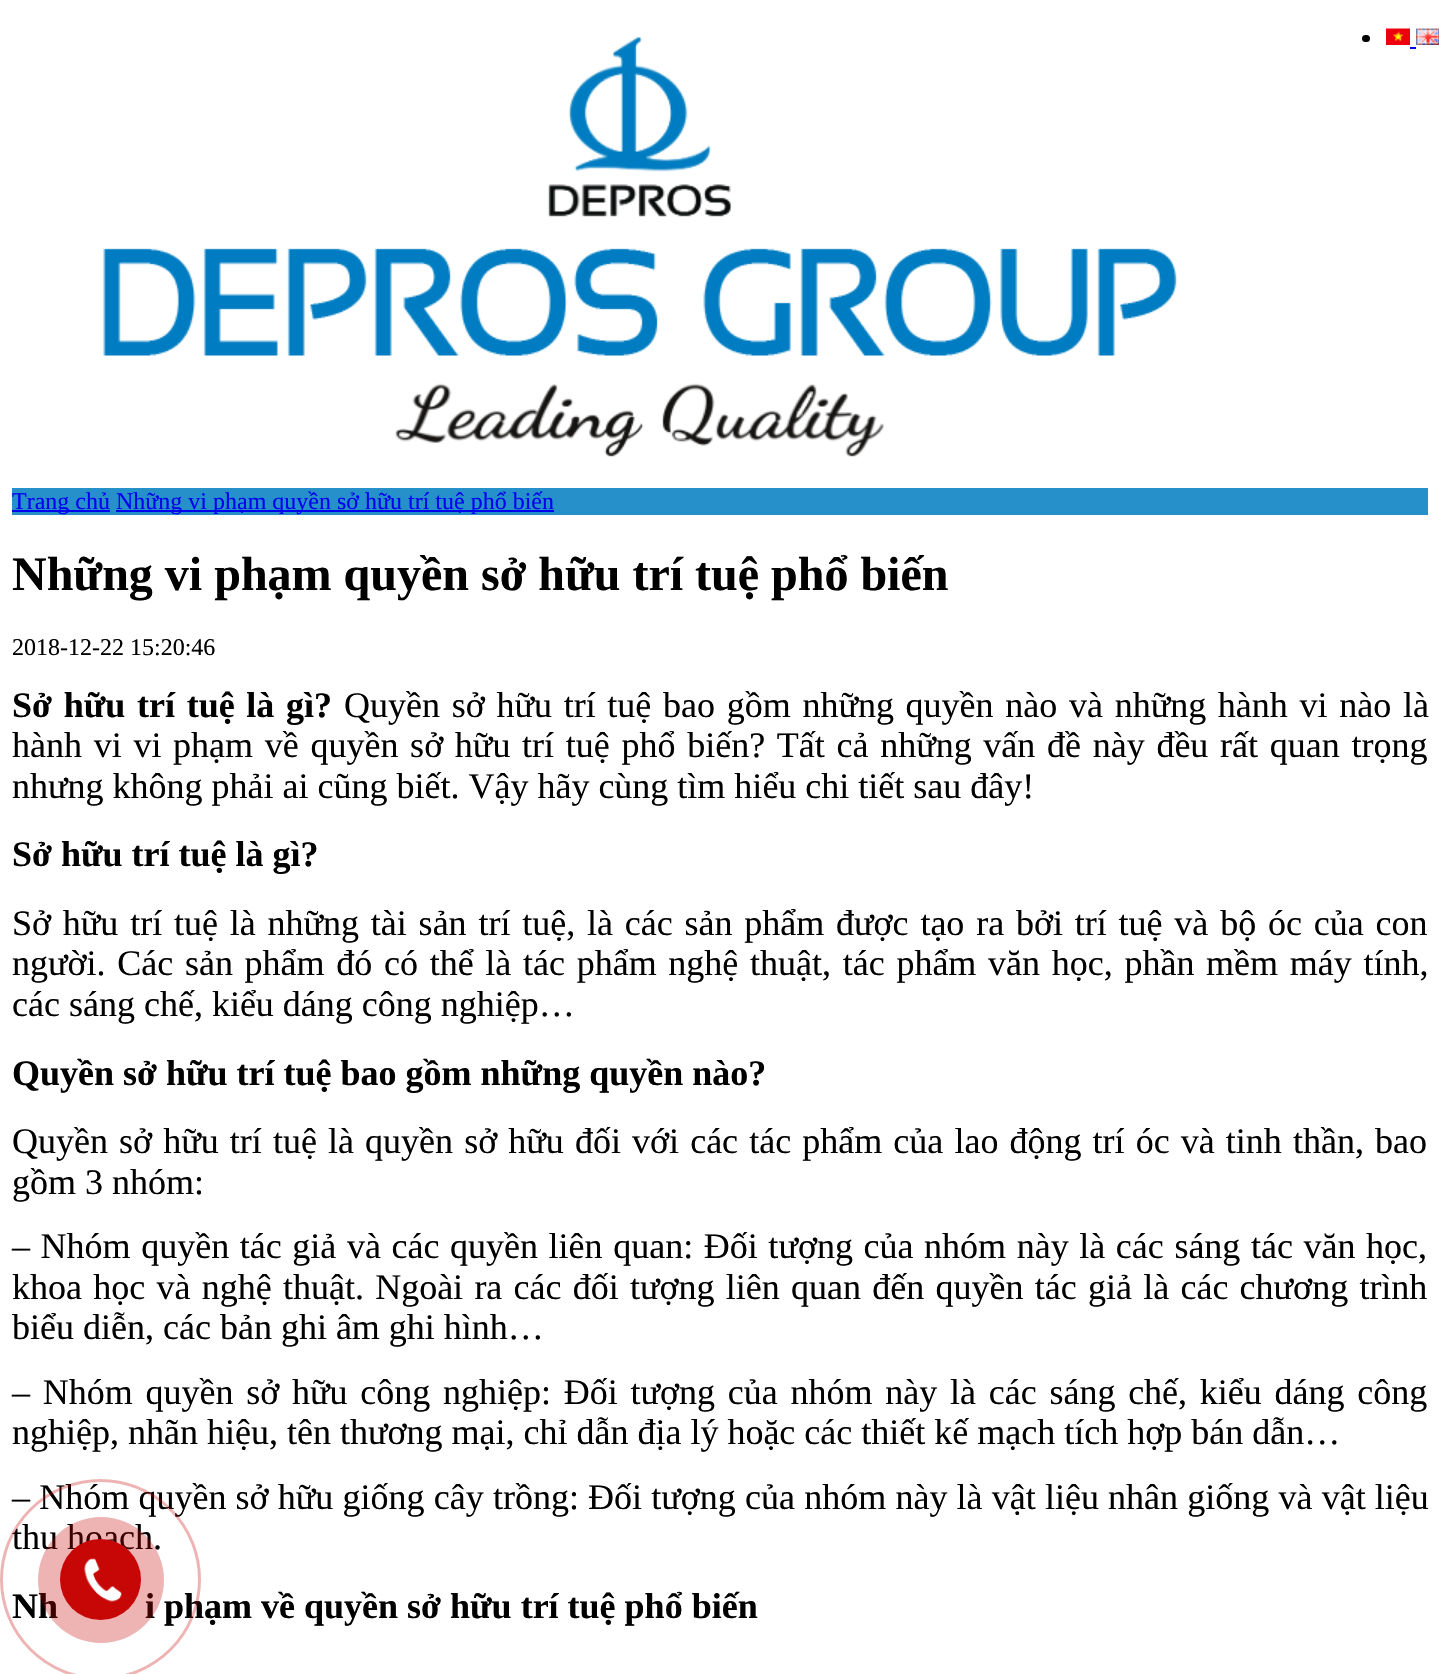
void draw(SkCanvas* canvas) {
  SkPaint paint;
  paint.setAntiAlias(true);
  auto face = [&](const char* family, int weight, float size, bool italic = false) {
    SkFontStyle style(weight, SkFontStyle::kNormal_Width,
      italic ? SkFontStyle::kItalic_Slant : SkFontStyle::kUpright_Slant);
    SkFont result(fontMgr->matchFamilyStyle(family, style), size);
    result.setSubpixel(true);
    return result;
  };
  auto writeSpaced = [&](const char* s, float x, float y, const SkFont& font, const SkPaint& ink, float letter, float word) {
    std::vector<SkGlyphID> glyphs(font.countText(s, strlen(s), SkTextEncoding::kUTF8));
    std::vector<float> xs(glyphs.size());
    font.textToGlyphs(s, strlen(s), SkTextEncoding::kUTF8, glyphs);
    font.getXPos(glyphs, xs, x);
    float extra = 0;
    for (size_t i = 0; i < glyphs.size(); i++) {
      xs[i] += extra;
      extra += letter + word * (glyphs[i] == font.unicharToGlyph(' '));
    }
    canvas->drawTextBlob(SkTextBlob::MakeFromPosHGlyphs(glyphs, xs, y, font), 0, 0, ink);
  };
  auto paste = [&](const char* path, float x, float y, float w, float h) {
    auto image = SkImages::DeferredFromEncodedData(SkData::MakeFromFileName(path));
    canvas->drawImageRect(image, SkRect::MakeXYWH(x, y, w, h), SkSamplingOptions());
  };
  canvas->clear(0xffffffff);
  paste("img/1.png", 103, 37, 1074, 420);
  paint.setColor(0xff000000);
  canvas->drawRoundRect(SkRect::MakeXYWH(1362, 35, 8, 7), 3.5f, 3.5f, paint);
  paste("img/2.png", 1386, 28, 24, 17);
  paste("img/3.png", 1416, 28, 23, 17);
  {
    const struct { float x, y, w, h; SkColor color; } items[] = {
      {1410, 47, 6, 2, 0xff0000ee},
      {12, 488, 1416, 27, 0xff2690ca},
      {12, 510, 98, 2, 0xff0000ee},
      {116, 510, 438, 2, 0xff0000ee},
    };
    for (auto [x, y, w, h, color] : items) {
      paint.setColor(color);
      canvas->drawRect(SkRect::MakeXYWH(x, y, w, h), paint);
    }
  }
  auto f0 = face("Liberation Serif", 400, 24);
  canvas->drawString("Trang chủ", 12, 509, f0, paint);
  canvas->drawString("Những vi phạm quyền sở hữu trí tuệ phổ biến", 116, 509, f0, paint);
  auto f1 = face("Liberation Serif", 700, 48);
  paint.setColor(0xff000000);
  canvas->drawString("Những vi phạm quyền sở hữu trí tuệ phổ biến", 12, 590, f1, paint);
  canvas->drawString("2018-12-22 15:20:46", 12, 655, f0, paint);
  auto f2 = face("Liberation Serif", 700, 36);
  writeSpaced("Sở hữu trí tuệ là gì?", 12, 717, f2, paint, 0, 2.7f);
  auto f3 = face("Liberation Serif", 400, 36);
  writeSpaced("Quyền sở hữu trí tuệ bao gồm những quyền nào và những hành vi nào là", 344, 717, f3, paint, 0, 2.7f);
  writeSpaced("hành vi vi phạm về quyền sở hữu trí tuệ phổ biến? Tất cả những vấn đề này đều rất quan trọng", 12, 757, f3, paint, 0, 2.7f);
  canvas->drawString("nhưng không phải ai cũng biết. Vậy hãy cùng tìm hiểu chi tiết sau đây!", 12, 798, f3, paint);
  canvas->drawString("Sở hữu trí tuệ là gì?", 12, 866, f2, paint);
  writeSpaced("Sở hữu trí tuệ là những tài sản trí tuệ, là các sản phẩm được tạo ra bởi trí tuệ và bộ óc của con", 12, 935, f3, paint, 0, 2.8f);
  writeSpaced("người. Các sản phẩm đó có thể là tác phẩm nghệ thuật, tác phẩm văn học, phần mềm máy tính,", 12, 975, f3, paint, 0, 2.7f);
  canvas->drawString("các sáng chế, kiểu dáng công nghiệp…", 12, 1016, f3, paint);
  canvas->drawString("Quyền sở hữu trí tuệ bao gồm những quyền nào?", 12, 1085, f2, paint);
  writeSpaced("Quyền sở hữu trí tuệ là quyền sở hữu đối với các tác phẩm của lao động trí óc và tinh thần, bao", 12, 1153, f3, paint, 0, 2.1f);
  canvas->drawString("gồm 3 nhóm:", 12, 1194, f3, paint);
  writeSpaced("– Nhóm quyền tác giả và các quyền liên quan: Đối tượng của nhóm này là các sáng tác văn học,", 12, 1258, f3, paint, 0, 1.6f);
  writeSpaced("khoa học và nghệ thuật. Ngoài ra các đối tượng liên quan đến quyền tác giả là các chương trình", 12, 1299, f3, paint, 0, 2.25f);
  canvas->drawString("biểu diễn, các bản ghi âm ghi hình…", 12, 1339, f3, paint);
  writeSpaced("– Nhóm quyền sở hữu công nghiệp: Đối tượng của nhóm này là các sáng chế, kiểu dáng công", 12, 1404, f3, paint, 0, 3.75f);
  canvas->drawString("nghiệp, nhãn hiệu, tên thương mại, chỉ dẫn địa lý hoặc các thiết kế mạch tích hợp bán dẫn…", 12, 1444, f3, paint);
  writeSpaced("– Nhóm quyền sở hữu giống cây trồng: Đối tượng của nhóm này là vật liệu nhân giống và vật liệu", 12, 1509, f3, paint, 0, 0.2f);
  canvas->drawString("thu hoạch.", 12, 1549, f3, paint);
  canvas->drawString("Nh", 12, 1618, f2, paint);
  canvas->drawString("i phạm về quyền sở hữu trí tuệ phổ biến", 145, 1618, f2, paint);
  paint.setStroke(true);
  paint.setStrokeWidth(3);
  paint.setColor(0x4dc70606);
  canvas->drawCircle(100.5f, 1579.5f, 99, paint);
  paint.setStroke(false);
  canvas->drawCircle(101, 1580, 63, paint);
  paint.setColor(0xffc70606);
  canvas->drawCircle(100.5f, 1579.5f, 40.5f, paint);
  paste("img/4.png", 84, 1558, 38, 44);
}
